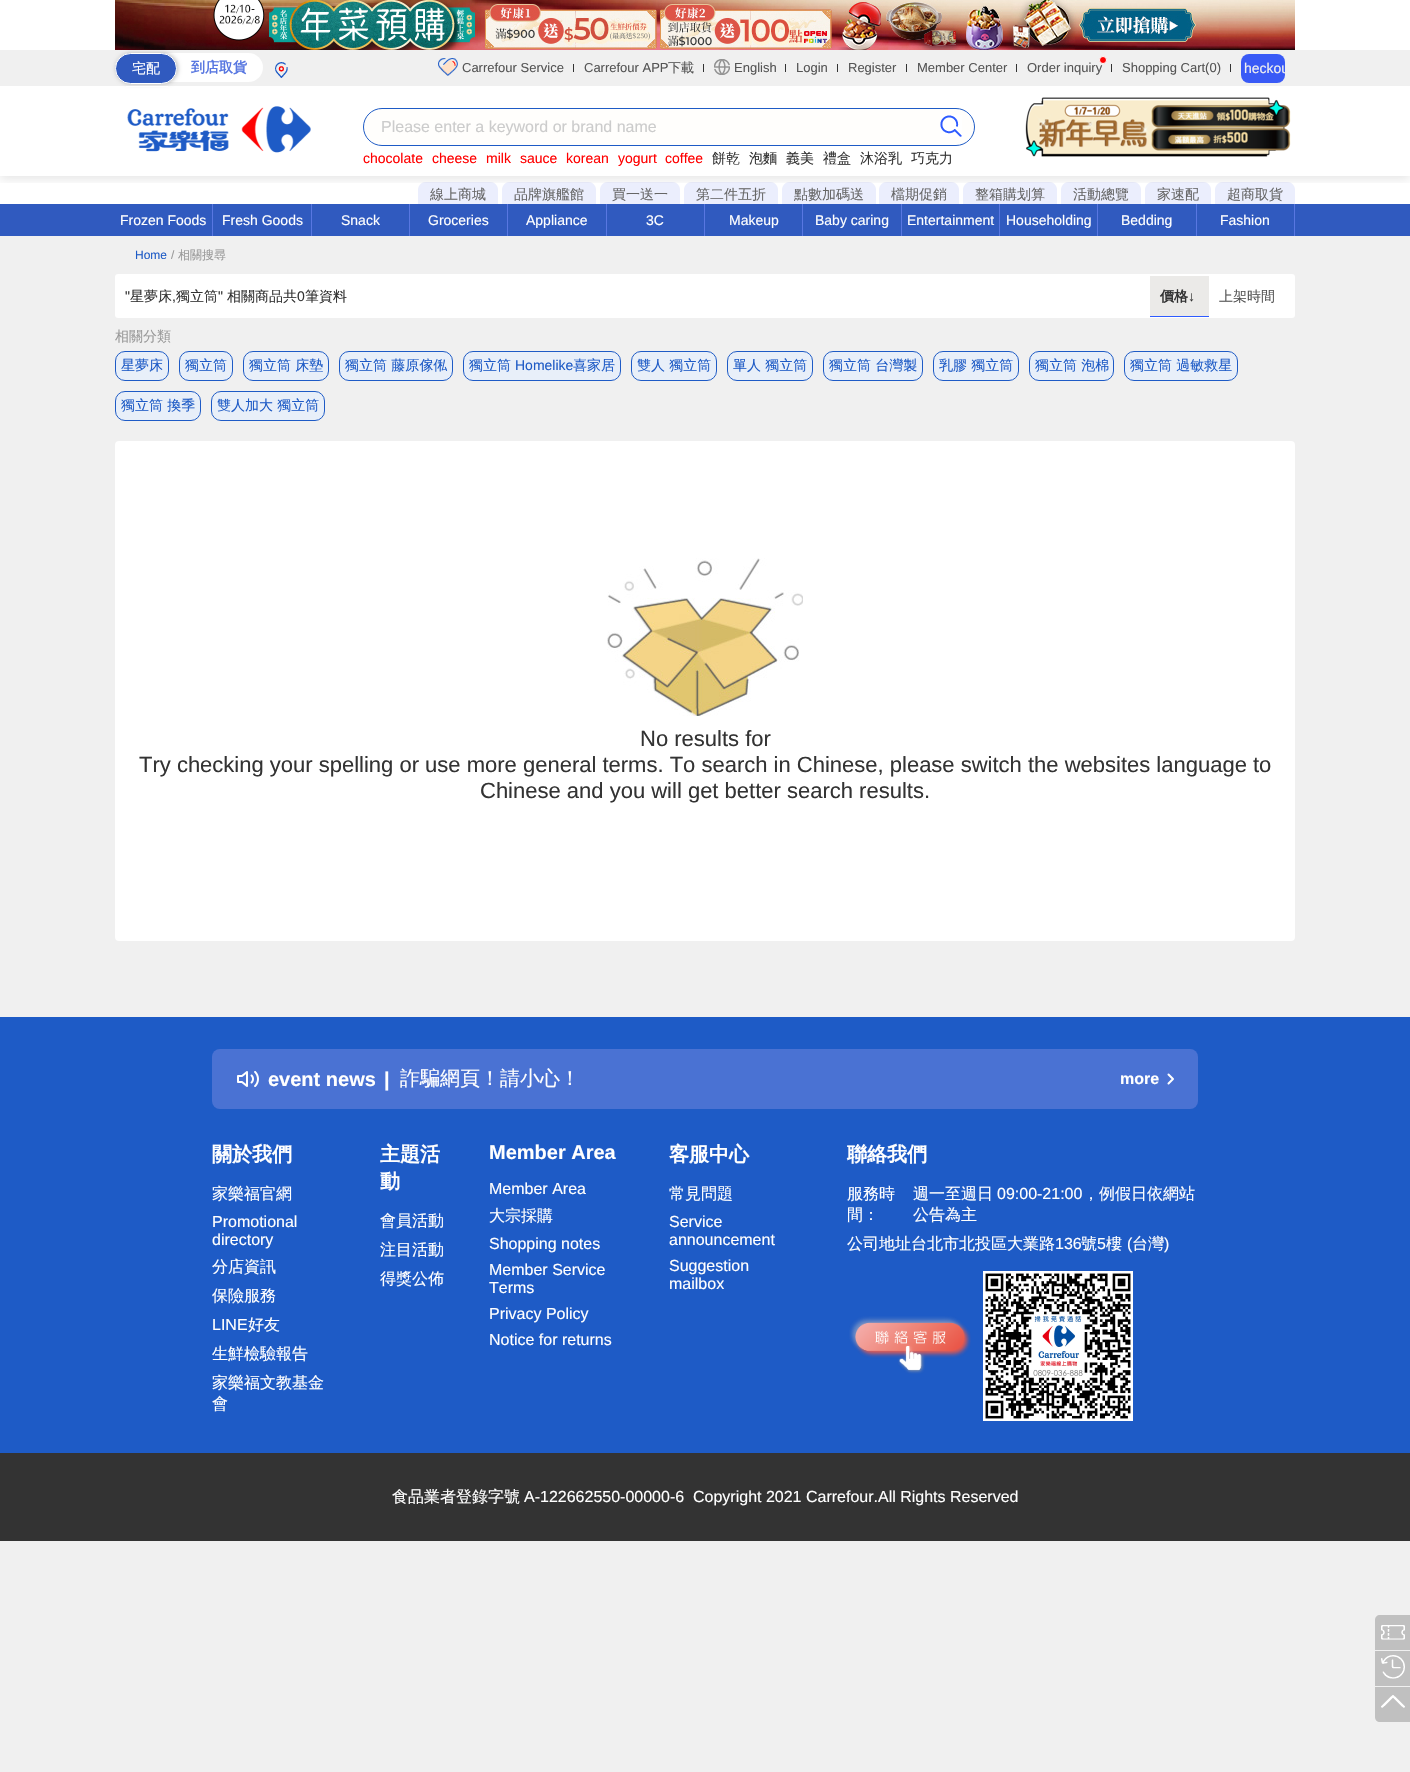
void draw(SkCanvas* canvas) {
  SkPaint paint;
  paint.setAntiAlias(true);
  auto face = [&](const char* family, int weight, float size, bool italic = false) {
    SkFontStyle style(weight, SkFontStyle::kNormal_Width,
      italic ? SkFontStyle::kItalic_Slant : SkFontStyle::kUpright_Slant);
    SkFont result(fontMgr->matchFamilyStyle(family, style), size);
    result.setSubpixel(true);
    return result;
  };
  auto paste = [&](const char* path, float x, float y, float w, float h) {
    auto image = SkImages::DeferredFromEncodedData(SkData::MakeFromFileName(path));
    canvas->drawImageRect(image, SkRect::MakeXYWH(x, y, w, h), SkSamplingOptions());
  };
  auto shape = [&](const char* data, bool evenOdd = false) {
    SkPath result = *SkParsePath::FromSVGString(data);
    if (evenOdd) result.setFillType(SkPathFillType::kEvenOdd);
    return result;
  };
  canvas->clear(0xfff0f0f0);
  paint.setColor(0xffffffff);
  canvas->drawRect(SkRect::MakeXYWH(0, 0, 1410, 204), paint);
  paint.setColor(0xffebeefd);
  canvas->drawPath(shape("M426 182H490C494.5 182 498 185.5 498 190V206H418V190C418 185.5 421.5 182 426 182Z"), paint);
  canvas->drawPath(shape("M510 182H588C592.5 182 596 185.5 596 190V206H502V190C502 185.5 505.5 182 510 182Z"), paint);
  canvas->drawPath(shape("M608 182H672C676.5 182 680 185.5 680 190V206H600V190C600 185.5 603.5 182 608 182Z"), paint);
  canvas->drawPath(shape("M692 182H770C774.5 182 778 185.5 778 190V206H684V190C684 185.5 687.5 182 692 182Z"), paint);
  canvas->drawPath(shape("M790 182H868C872.5 182 876 185.5 876 190V206H782V190C782 185.5 785.5 182 790 182Z"), paint);
  canvas->drawPath(shape("M887 182H951C955.5 182 959 185.5 959 190V206H879V190C879 185.5 882.5 182 887 182Z"), paint);
  canvas->drawPath(shape("M971 182H1049C1053.5 182 1057 185.5 1057 190V206H963V190C963 185.5 966.5 182 971 182Z"), paint);
  canvas->drawPath(shape("M1069 182H1133C1137.5 182 1141 185.5 1141 190V206H1061V190C1061 185.5 1064.5 182 1069 182Z"), paint);
  canvas->drawPath(shape("M1153 182H1203C1207.5 182 1211 185.5 1211 190V206H1145V190C1145 185.5 1148.5 182 1153 182Z"), paint);
  canvas->drawPath(shape("M1223 182H1287C1291.5 182 1295 185.5 1295 190V206H1215V190C1215 185.5 1218.5 182 1223 182Z"), paint);
  canvas->save();
  canvas->clipRect(SkRect::MakeXYWH(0, 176, 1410, 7));
  paint.setColor(0x1a000000);
  paint.setMaskFilter(SkMaskFilter::MakeBlur(kNormal_SkBlurStyle, 5));
  canvas->drawRect(SkRect::MakeXYWH(0, 3, 1410, 176), paint);
  paint.setMaskFilter(nullptr);
  canvas->restore();
  paste("img/1.png", 115, 0, 1180, 50);
  paint.setColor(0xfff0f0f0);
  canvas->drawRect(SkRect::MakeXYWH(0, 50, 1410, 36), paint);
  paint.setColor(0xffffffff);
  canvas->drawRoundRect(SkRect::MakeXYWH(115, 53, 148, 29), 14.5f, 14.5f, paint);
  paint.setColor(0x40000000);
  paint.setMaskFilter(SkMaskFilter::MakeBlur(kNormal_SkBlurStyle, 2));
  canvas->drawRoundRect(SkRect::MakeXYWH(116, 53, 62, 31), 15.5f, 15.5f, paint);
  paint.setMaskFilter(nullptr);
  paint.setColor(0xff305abf);
  canvas->drawRoundRect(SkRect::MakeXYWH(115.5f, 53.5f, 61, 30), 15, 15, paint);
  paint.setStroke(true);
  paint.setStrokeWidth(1);
  paint.setColor(0xffffffff);
  canvas->drawRoundRect(SkRect::MakeXYWH(115.5f, 53.5f, 61, 30), 15, 15, paint);
  paste("img/2.png", 275, 62, 13, 16);
  paste("img/3.png", 438, 58, 20, 18);
  paint.setStroke(false);
  paint.setColor(0xff333333);
  canvas->drawRect(SkRect::MakeXYWH(573, 64, 1, 8), paint);
  canvas->drawRect(SkRect::MakeXYWH(703, 64, 1, 8), paint);
  paste("img/4.png", 714, 59, 16, 16);
  {
    const struct { float x, y, w, h; SkColor color; } items[] = {
      {785, 64, 1, 8, 0xff333333},
      {837, 64, 1, 8, 0xff333333},
      {906, 64, 1, 8, 0xff333333},
      {1016, 64, 1, 8, 0xff333333},
      {1111, 64, 1, 8, 0xff333333},
      {1230, 64, 1, 8, 0xff333333},
    };
    for (auto [x, y, w, h, color] : items) {
      paint.setColor(color);
      canvas->drawRect(SkRect::MakeXYWH(x, y, w, h), paint);
    }
  }
  paint.setColor(0xff395af6);
  canvas->drawRoundRect(SkRect::MakeXYWH(1241, 54, 44, 29), 8, 8, paint);
  paint.setColor(0xffffffff);
  canvas->drawRect(SkRect::MakeXYWH(126, 86, 42, 1), paint);
  paste("img/5.png", 127, 106, 184, 47);
  paint.setColor(0xfffffefc);
  canvas->drawRoundRect(SkRect::MakeXYWH(363.5f, 108.5f, 611, 37), 18.5f, 18.5f, paint);
  paint.setStroke(true);
  paint.setColor(0xff1e5bc6);
  canvas->drawRoundRect(SkRect::MakeXYWH(363.5f, 108.5f, 611, 37), 18.5f, 18.5f, paint);
  paste("img/6.png", 940, 115, 22, 22);
  paste("img/7.png", 1025, 97, 266, 60);
  paint.setStroke(false);
  {
    const struct { float x, y, w, h; SkColor color; } items[] = {
      {0, 204, 1410, 32, 0xff305abf},
      {212, 204, 1, 32, 0xff5877e1},
      {311, 204, 1, 32, 0xff5877e1},
      {409, 204, 1, 32, 0xff5877e1},
      {507, 204, 1, 32, 0xff5877e1},
      {606, 204, 1, 32, 0xff5877e1},
      {704, 204, 1, 32, 0xff5877e1},
      {802, 204, 1, 32, 0xff5877e1},
      {901, 204, 1, 32, 0xff5877e1},
      {999, 204, 1, 32, 0xff5877e1},
      {1097, 204, 1, 32, 0xff5877e1},
      {1196, 204, 1, 32, 0xff5877e1},
      {1294, 204, 1, 32, 0xff5877e1},
    };
    for (auto [x, y, w, h, color] : items) {
      paint.setColor(color);
      canvas->drawRect(SkRect::MakeXYWH(x, y, w, h), paint);
    }
  }
  paint.setColor(0xffffffff);
  canvas->drawRoundRect(SkRect::MakeXYWH(115, 274, 1180, 44), 3, 3, paint);
  paint.setColor(0xffebeae8);
  canvas->drawRect(SkRect::MakeXYWH(1150, 276, 59, 40), paint);
  paint.setColor(0xff2e5bff);
  canvas->drawRect(SkRect::MakeXYWH(1150, 316, 59, 1), paint);
  paint.setColor(0xffe8eff9);
  canvas->drawRoundRect(SkRect::MakeXYWH(115.5f, 351.5f, 53, 29), 9.5f, 9.5f, paint);
  paint.setStroke(true);
  paint.setColor(0xff1e5bc6);
  canvas->drawRoundRect(SkRect::MakeXYWH(115.5f, 351.5f, 53, 29), 9.5f, 9.5f, paint);
  paint.setStroke(false);
  paint.setColor(0xffe8eff9);
  canvas->drawRoundRect(SkRect::MakeXYWH(179.5f, 351.5f, 53, 29), 9.5f, 9.5f, paint);
  paint.setStroke(true);
  paint.setColor(0xff1e5bc6);
  canvas->drawRoundRect(SkRect::MakeXYWH(179.5f, 351.5f, 53, 29), 9.5f, 9.5f, paint);
  paint.setStroke(false);
  paint.setColor(0xffe8eff9);
  canvas->drawRoundRect(SkRect::MakeXYWH(243.5f, 351.5f, 85, 29), 9.5f, 9.5f, paint);
  paint.setStroke(true);
  paint.setColor(0xff1e5bc6);
  canvas->drawRoundRect(SkRect::MakeXYWH(243.5f, 351.5f, 85, 29), 9.5f, 9.5f, paint);
  paint.setStroke(false);
  paint.setColor(0xffe8eff9);
  canvas->drawRoundRect(SkRect::MakeXYWH(339.5f, 351.5f, 113, 29), 9.5f, 9.5f, paint);
  paint.setStroke(true);
  paint.setColor(0xff1e5bc6);
  canvas->drawRoundRect(SkRect::MakeXYWH(339.5f, 351.5f, 113, 29), 9.5f, 9.5f, paint);
  paint.setStroke(false);
  paint.setColor(0xffe8eff9);
  canvas->drawRoundRect(SkRect::MakeXYWH(463.5f, 351.5f, 157, 29), 9.5f, 9.5f, paint);
  paint.setStroke(true);
  paint.setColor(0xff1e5bc6);
  canvas->drawRoundRect(SkRect::MakeXYWH(463.5f, 351.5f, 157, 29), 9.5f, 9.5f, paint);
  paint.setStroke(false);
  paint.setColor(0xffe8eff9);
  canvas->drawRoundRect(SkRect::MakeXYWH(631.5f, 351.5f, 85, 29), 9.5f, 9.5f, paint);
  paint.setStroke(true);
  paint.setColor(0xff1e5bc6);
  canvas->drawRoundRect(SkRect::MakeXYWH(631.5f, 351.5f, 85, 29), 9.5f, 9.5f, paint);
  paint.setStroke(false);
  paint.setColor(0xffe8eff9);
  canvas->drawRoundRect(SkRect::MakeXYWH(727.5f, 351.5f, 85, 29), 9.5f, 9.5f, paint);
  paint.setStroke(true);
  paint.setColor(0xff1e5bc6);
  canvas->drawRoundRect(SkRect::MakeXYWH(727.5f, 351.5f, 85, 29), 9.5f, 9.5f, paint);
  paint.setStroke(false);
  paint.setColor(0xffe8eff9);
  canvas->drawRoundRect(SkRect::MakeXYWH(823.5f, 351.5f, 99, 29), 9.5f, 9.5f, paint);
  paint.setStroke(true);
  paint.setColor(0xff1e5bc6);
  canvas->drawRoundRect(SkRect::MakeXYWH(823.5f, 351.5f, 99, 29), 9.5f, 9.5f, paint);
  paint.setStroke(false);
  paint.setColor(0xffe8eff9);
  canvas->drawRoundRect(SkRect::MakeXYWH(933.5f, 351.5f, 85, 29), 9.5f, 9.5f, paint);
  paint.setStroke(true);
  paint.setColor(0xff1e5bc6);
  canvas->drawRoundRect(SkRect::MakeXYWH(933.5f, 351.5f, 85, 29), 9.5f, 9.5f, paint);
  paint.setStroke(false);
  paint.setColor(0xffe8eff9);
  canvas->drawRoundRect(SkRect::MakeXYWH(1029.5f, 351.5f, 84, 29), 9.5f, 9.5f, paint);
  paint.setStroke(true);
  paint.setColor(0xff1e5bc6);
  canvas->drawRoundRect(SkRect::MakeXYWH(1029.5f, 351.5f, 84, 29), 9.5f, 9.5f, paint);
  paint.setStroke(false);
  paint.setColor(0xffe8eff9);
  canvas->drawRoundRect(SkRect::MakeXYWH(1124.5f, 351.5f, 113, 29), 9.5f, 9.5f, paint);
  paint.setStroke(true);
  paint.setColor(0xff1e5bc6);
  canvas->drawRoundRect(SkRect::MakeXYWH(1124.5f, 351.5f, 113, 29), 9.5f, 9.5f, paint);
  paint.setStroke(false);
  paint.setColor(0xffe8eff9);
  canvas->drawRoundRect(SkRect::MakeXYWH(115.5f, 391.5f, 85, 29), 9.5f, 9.5f, paint);
  paint.setStroke(true);
  paint.setColor(0xff1e5bc6);
  canvas->drawRoundRect(SkRect::MakeXYWH(115.5f, 391.5f, 85, 29), 9.5f, 9.5f, paint);
  paint.setStroke(false);
  paint.setColor(0xffe8eff9);
  canvas->drawRoundRect(SkRect::MakeXYWH(211.5f, 391.5f, 113, 29), 9.5f, 9.5f, paint);
  paint.setStroke(true);
  paint.setColor(0xff1e5bc6);
  canvas->drawRoundRect(SkRect::MakeXYWH(211.5f, 391.5f, 113, 29), 9.5f, 9.5f, paint);
  paint.setStroke(false);
  paint.setColor(0xffffffff);
  canvas->drawRoundRect(SkRect::MakeXYWH(115, 441, 1180, 500), 4, 4, paint);
  paste("img/8.png", 607, 558, 196, 158);
  paint.setColor(0xff1e5bc6);
  canvas->drawRect(SkRect::MakeXYWH(0, 1017, 1410, 436), paint);
  paint.setColor(0xff4a72d3);
  canvas->drawRoundRect(SkRect::MakeXYWH(212, 1049, 986, 60), 8, 8, paint);
  paste("img/9.png", 237, 1071, 22, 16);
  paint.setStroke(true);
  paint.setStrokeWidth(2);
  paint.setStrokeCap(SkPaint::kRound_Cap);
  paint.setStrokeJoin(SkPaint::kRound_Join);
  paint.setColor(0xffffffff);
  canvas->drawPath(shape("M1168.5 1074.5L1173 1079L1168.5 1083.5"), paint);
  paste("img/10.png", 849, 1316, 122, 58);
  paste("img/11.png", 983, 1271, 150, 150);
  paint.setStroke(false);
  paint.setColor(0xff333333);
  canvas->drawRect(SkRect::MakeXYWH(0, 1453, 1410, 88), paint);
  paint.setColor(0xffc0c0c0);
  canvas->drawPath(shape("M1380 1615H1410V1650H1375V1620C1375 1617 1377 1615 1380 1615Z"), paint);
  paste("img/12.png", 1381, 1625, 24, 15);
  canvas->drawRect(SkRect::MakeXYWH(1375, 1651, 35, 35), paint);
  paste("img/13.png", 1381, 1655, 24, 24);
  canvas->drawPath(shape("M1375 1687H1410V1722H1380C1377 1722 1375 1720 1375 1717Z"), paint);
  paste("img/14.png", 1381, 1695, 24, 13);
  auto f0 = face("WenQuanYi Zen Hei", 500, 14);
  paint.setColor(0xffffffff);
  canvas->drawString("宅配", 132, 73, f0, paint);
  auto f1 = face("WenQuanYi Zen Hei", 700, 14);
  paint.setColor(0xff5877e1);
  canvas->drawString("到店取貨", 191, 72, f1, paint);
  auto f2 = face("Liberation Sans", 400, 13);
  paint.setColor(0xff555555);
  canvas->drawString("Carrefour Service", 462, 72, f2, paint);
  canvas->drawString("Carrefour APP", 584, 72, f2, paint);
  auto f3 = face("WenQuanYi Zen Hei", 500, 13);
  canvas->drawString("下載", 668, 72, f3, paint);
  {
    const struct { const char* s; float x, y; } items[] = {
      {"English", 734, 72},
      {"Login", 796, 72},
      {"Register", 848, 72},
      {"Member Center", 917, 72},
      {"Order inquiry", 1027, 72},
    };
    for (auto [s, x, y] : items) {
      canvas->drawString(s, x, y, f2, paint);
    }
  }
  paint.setColor(0xffff0000);
  canvas->drawCircle(1103, 60, 3.5f, paint);
  paint.setStroke(true);
  paint.setStrokeWidth(1);
  paint.setStrokeCap(SkPaint::kButt_Cap);
  paint.setStrokeJoin(SkPaint::kMiter_Join);
  paint.setColor(0xffffffff);
  canvas->drawCircle(1103, 60, 3.5f, paint);
  paint.setStroke(false);
  paint.setColor(0xff555555);
  canvas->drawString("Shopping Cart(0)", 1122, 72, f2, paint);
  auto f4 = face("Liberation Sans", 400, 14);
  paint.setColor(0xfff0f0f0);
  canvas->drawString("heckou", 1244, 73, f4, paint);
  auto f5 = face("Liberation Sans", 400, 16);
  paint.setColor(0xffcccccc);
  canvas->drawString("Please enter a keyword or brand name", 381, 132, f5, paint);
  paint.setColor(0xffff0000);
  {
    const struct { const char* s; float x, y; } items[] = {
      {"chocolate", 363, 163},
      {"cheese", 432, 163},
      {"milk", 486, 163},
      {"sauce", 520, 163},
      {"korean", 566, 163},
      {"yogurt", 618, 163},
      {"coffee", 665, 163},
    };
    for (auto [s, x, y] : items) {
      canvas->drawString(s, x, y, f4, paint);
    }
  }
  paint.setColor(0xff333333);
  {
    const struct { const char* s; float x, y; } items[] = {
      {"餅乾", 712, 163},
      {"泡麵", 749, 163},
      {"義美", 786, 163},
      {"禮盒", 823, 163},
      {"沐浴乳", 860, 163},
      {"巧克力", 911, 163},
    };
    for (auto [s, x, y] : items) {
      canvas->drawString(s, x, y, f0, paint);
    }
  }
  paint.setColor(0xff666666);
  {
    const struct { const char* s; float x, y; } items[] = {
      {"線上商城", 430, 199},
      {"品牌旗艦館", 514, 199},
      {"買一送一", 612, 199},
      {"第二件五折", 696, 199},
      {"點數加碼送", 794, 199},
      {"檔期促銷", 891, 199},
      {"整箱購划算", 975, 199},
      {"活動總覽", 1073, 199},
      {"家速配", 1157, 199},
      {"超商取貨", 1227, 199},
    };
    for (auto [s, x, y] : items) {
      canvas->drawString(s, x, y, f0, paint);
    }
  }
  paint.setColor(0xffffffff);
  {
    const struct { const char* s; float x, y; } items[] = {
      {"Frozen Foods", 120, 225},
      {"Fresh Goods", 222, 225},
      {"Snack", 341, 225},
      {"Groceries", 428, 225},
      {"Appliance", 526, 225},
      {"3C", 646, 225},
      {"Makeup", 729, 225},
      {"Baby caring", 815, 225},
      {"Entertainment", 907, 225},
      {"Householding", 1006, 225},
      {"Bedding", 1121, 225},
      {"Fashion", 1220, 225},
    };
    for (auto [s, x, y] : items) {
      canvas->drawString(s, x, y, f4, paint);
    }
  }
  auto f6 = face("Liberation Sans", 400, 12);
  paint.setColor(0xff1e5bc6);
  canvas->drawString("Home", 135, 259, f6, paint);
  paint.setColor(0xff999999);
  canvas->drawString("/", 171, 259, f6, paint);
  auto f7 = face("WenQuanYi Zen Hei", 500, 12);
  canvas->drawString("相關搜尋", 178, 259, f7, paint);
  paint.setColor(0xff333333);
  canvas->drawString("\"", 125, 301, f4, paint);
  canvas->drawString("星夢床", 130, 301, f0, paint);
  canvas->drawString(",", 172, 301, f4, paint);
  canvas->drawString("獨立筒", 176, 301, f0, paint);
  canvas->drawString("\"", 218, 301, f4, paint);
  canvas->drawString("相關商品共", 227, 301, f0, paint);
  canvas->drawString("0", 297, 301, f4, paint);
  canvas->drawString("筆資料", 305, 301, f0, paint);
  canvas->drawString("價格", 1160, 301, f1, paint);
  auto f8 = face("Liberation Sans", 700, 14);
  canvas->drawString("↓", 1188, 301, f8, paint);
  paint.setColor(0xff555555);
  canvas->drawString("上架時間", 1219, 301, f0, paint);
  paint.setColor(0xff999999);
  canvas->drawString("相關分類", 115, 341, f0, paint);
  paint.setColor(0xff1e5bc6);
  {
    const struct { const char* s; float x, y; } items[] = {
      {"星夢床", 121, 370},
      {"獨立筒", 185, 370},
      {"獨立筒 床墊", 249, 370},
      {"獨立筒 藤原傢俬", 345, 370},
      {"獨立筒", 469, 370},
    };
    for (auto [s, x, y] : items) {
      canvas->drawString(s, x, y, f0, paint);
    }
  }
  canvas->drawString("Homelike", 515, 370, f4, paint);
  {
    const struct { const char* s; float x, y; } items[] = {
      {"喜家居", 573, 370},
      {"雙人 獨立筒", 637, 370},
      {"單人 獨立筒", 733, 370},
      {"獨立筒 台灣製", 829, 370},
      {"乳膠 獨立筒", 939, 370},
      {"獨立筒 泡棉", 1035, 370},
      {"獨立筒 過敏救星", 1130, 370},
      {"獨立筒 換季", 121, 410},
      {"雙人加大 獨立筒", 217, 410},
    };
    for (auto [s, x, y] : items) {
      canvas->drawString(s, x, y, f0, paint);
    }
  }
  auto f9 = face("Liberation Sans", 400, 22);
  paint.setColor(0xff333333);
  {
    const struct { const char* s; float x, y; } items[] = {
      {"No results for", 640, 746},
      {"Try checking your spelling or use more general terms. To search in Chinese, please switch the websites language to", 139, 772},
      {"Chinese and you will get better search results.", 480, 798},
    };
    for (auto [s, x, y] : items) {
      canvas->drawString(s, x, y, f9, paint);
    }
  }
  auto f10 = face("Liberation Sans", 700, 20);
  paint.setColor(0xffffffff);
  canvas->drawString("event news", 268, 1086, f10, paint);
  canvas->drawString("|", 384, 1086, f10, paint);
  auto f11 = face("WenQuanYi Zen Hei", 500, 20);
  canvas->drawString("詐騙網頁！請小心！", 400, 1085, f11, paint);
  auto f12 = face("Liberation Sans", 700, 16);
  canvas->drawString("more", 1120, 1084, f12, paint);
  auto f13 = face("WenQuanYi Zen Hei", 700, 20);
  canvas->drawString("關於我們", 212, 1161, f13, paint);
  auto f14 = face("WenQuanYi Zen Hei", 500, 16);
  canvas->drawString("家樂福官網", 212, 1199, f14, paint);
  canvas->drawString("Promotional", 212, 1227, f5, paint);
  canvas->drawString("directory", 212, 1245, f5, paint);
  canvas->drawString("分店資訊", 212, 1272, f14, paint);
  canvas->drawString("保險服務", 212, 1301, f14, paint);
  canvas->drawString("LINE", 212, 1330, f5, paint);
  {
    const struct { const char* s; float x, y; } items[] = {
      {"好友", 248, 1330},
      {"生鮮檢驗報告", 212, 1359},
      {"家樂福文教基金", 212, 1388},
      {"會", 212, 1409},
    };
    for (auto [s, x, y] : items) {
      canvas->drawString(s, x, y, f14, paint);
    }
  }
  canvas->drawString("主題活", 380, 1161, f13, paint);
  canvas->drawString("動", 380, 1188, f13, paint);
  {
    const struct { const char* s; float x, y; } items[] = {
      {"會員活動", 380, 1226},
      {"注目活動", 380, 1255},
      {"得獎公佈", 380, 1284},
    };
    for (auto [s, x, y] : items) {
      canvas->drawString(s, x, y, f14, paint);
    }
  }
  canvas->drawString("Member Area", 489, 1159, f10, paint);
  canvas->drawString("Member Area", 489, 1194, f5, paint);
  canvas->drawString("大宗採購", 489, 1221, f14, paint);
  {
    const struct { const char* s; float x, y; } items[] = {
      {"Shopping notes", 489, 1249},
      {"Member Service", 489, 1275},
      {"Terms", 489, 1293},
      {"Privacy Policy", 489, 1319},
      {"Notice for returns", 489, 1345},
    };
    for (auto [s, x, y] : items) {
      canvas->drawString(s, x, y, f5, paint);
    }
  }
  canvas->drawString("客服中心", 669, 1161, f13, paint);
  canvas->drawString("常見問題", 669, 1199, f14, paint);
  {
    const struct { const char* s; float x, y; } items[] = {
      {"Service", 669, 1227},
      {"announcement", 669, 1245},
      {"Suggestion", 669, 1271},
      {"mailbox", 669, 1289},
    };
    for (auto [s, x, y] : items) {
      canvas->drawString(s, x, y, f5, paint);
    }
  }
  canvas->drawString("聯絡我們", 847, 1161, f13, paint);
  {
    const struct { const char* s; float x, y; } items[] = {
      {"服務時", 847, 1199},
      {"間：", 847, 1220},
      {"週一至週日", 913, 1199},
    };
    for (auto [s, x, y] : items) {
      canvas->drawString(s, x, y, f14, paint);
    }
  }
  canvas->drawString("09:00-21:00", 997, 1199, f5, paint);
  {
    const struct { const char* s; float x, y; } items[] = {
      {"，例假日依網站", 1083, 1199},
      {"公告為主", 913, 1220},
      {"公司地址台北市北投區大業路", 847, 1249},
    };
    for (auto [s, x, y] : items) {
      canvas->drawString(s, x, y, f14, paint);
    }
  }
  canvas->drawString("136", 1055, 1249, f5, paint);
  canvas->drawString("號", 1081, 1249, f14, paint);
  canvas->drawString("5", 1097, 1249, f5, paint);
  canvas->drawString("樓", 1106, 1249, f14, paint);
  canvas->drawString("(", 1127, 1249, f5, paint);
  canvas->drawString("台灣", 1132, 1249, f14, paint);
  canvas->drawString(")", 1164, 1249, f5, paint);
  canvas->drawString("食品業者登錄字號", 392, 1502, f14, paint);
  canvas->drawString("A-122662550-00000-6", 524, 1502, f5, paint);
  canvas->drawString("Copyright 2021 Carrefour.All Rights Reserved", 693, 1502, f5, paint);
}
